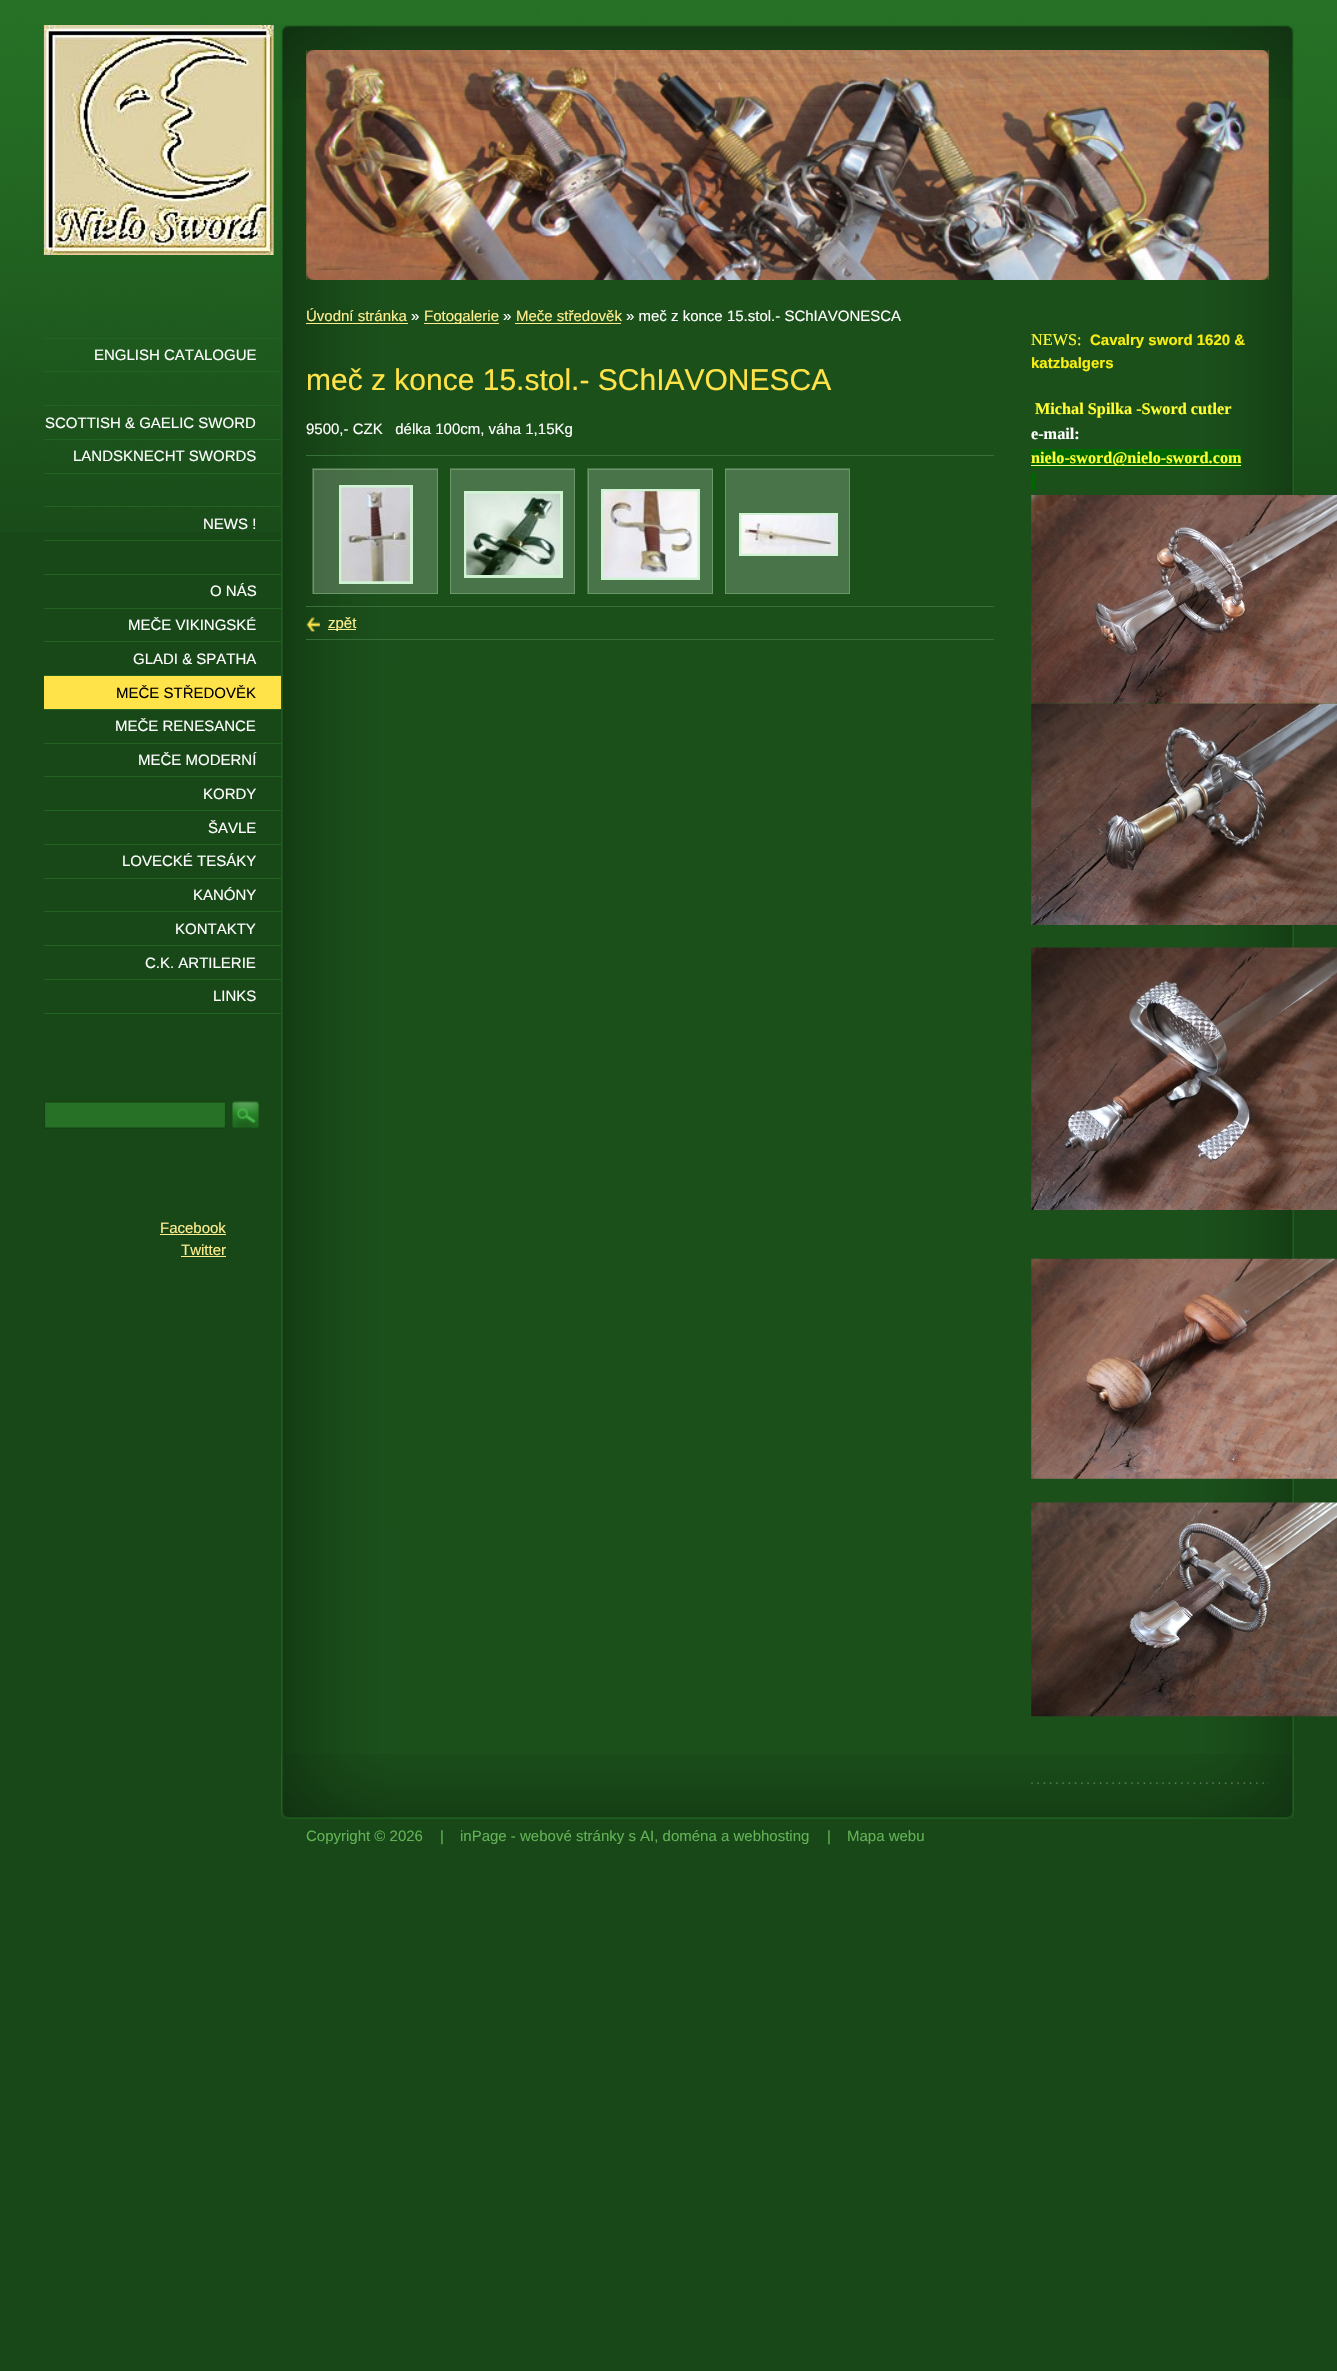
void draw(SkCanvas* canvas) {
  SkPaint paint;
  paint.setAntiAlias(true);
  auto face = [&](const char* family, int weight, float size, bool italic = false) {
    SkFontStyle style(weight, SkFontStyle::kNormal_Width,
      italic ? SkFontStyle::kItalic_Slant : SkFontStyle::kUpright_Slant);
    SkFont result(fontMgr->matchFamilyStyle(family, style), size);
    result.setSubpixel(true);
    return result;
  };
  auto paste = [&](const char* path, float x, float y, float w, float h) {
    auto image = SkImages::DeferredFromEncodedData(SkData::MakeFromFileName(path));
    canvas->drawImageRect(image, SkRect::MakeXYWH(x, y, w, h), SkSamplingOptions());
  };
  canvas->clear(0xff184818);
  paste("img/1.png", 0, 0, 1337, 532);
  paste("img/2.png", 43, 25, 231, 230);
  paste("img/10.png", 281, 25, 1013, 1794);
  paste("img/11.png", 281, 25, 1013, 74);
  paste("img/3.png", 306, 50, 963, 230);
  paste("img/4.png", 306, 50, 9, 8);
  paste("img/5.png", 1260, 50, 9, 9);
  paste("img/6.png", 306, 272, 9, 8);
  paste("img/7.png", 1260, 272, 9, 8);
  {
    const struct { float x, y, w, h; SkColor color; } items[] = {
      {44, 338, 237, 1, 0xff216421},
      {44, 371, 237, 1, 0xff216421},
      {44, 405, 237, 1, 0xff216421},
      {44, 439, 237, 1, 0xff216421},
      {44, 473, 237, 1, 0xff216421},
      {44, 506, 237, 1, 0xff216421},
      {44, 540, 237, 1, 0xff216421},
      {44, 574, 237, 1, 0xff216421},
      {44, 608, 237, 1, 0xff216421},
      {44, 641, 237, 1, 0xff216421},
      {44, 675, 237, 1, 0xff216421},
      {44, 676, 237, 33, 0xffffe349},
      {44, 709, 237, 1, 0xff216421},
      {44, 743, 237, 1, 0xff216421},
      {44, 776, 237, 1, 0xff216421},
      {44, 810, 237, 1, 0xff216421},
      {44, 844, 237, 1, 0xff216421},
      {44, 878, 237, 1, 0xff216421},
      {44, 911, 237, 1, 0xff216421},
      {44, 945, 237, 1, 0xff216421},
      {44, 979, 237, 1, 0xff216421},
      {44, 1013, 237, 1, 0xff216421},
    };
    for (auto [x, y, w, h, color] : items) {
      paint.setColor(color);
      canvas->drawRect(SkRect::MakeXYWH(x, y, w, h), paint);
    }
  }
  paste("img/8.png", 44, 1101, 182, 28);
  paste("img/9.png", 232, 1101, 27, 27);
  paint.setColor(0xffffee8e);
  canvas->drawRect(SkRect::MakeXYWH(160, 1234, 66, 1), paint);
  canvas->drawRect(SkRect::MakeXYWH(181, 1256, 45, 1), paint);
  paste("img/12.png", 281, 1754, 1013, 65);
  {
    const struct { float x, y, w, h; SkColor color; } items[] = {
      {306, 323, 102, 1, 0xffffee8e},
      {424, 323, 75, 1, 0xffffee8e},
      {515, 323, 106, 1, 0xffffee8e},
      {306, 455, 688, 1, 0xff377037},
      {312, 468, 126, 126, 0x33ffffff},
    };
    for (auto [x, y, w, h, color] : items) {
      paint.setColor(color);
      canvas->drawRect(SkRect::MakeXYWH(x, y, w, h), paint);
    }
  }
  paint.setStroke(true);
  paint.setStrokeWidth(1);
  paint.setColor(0xff6c9869);
  canvas->drawRect(SkRect::MakeXYWH(313.5f, 469.5f, 124, 124), paint);
  paint.setStrokeWidth(3);
  paint.setColor(0xffd0f3d4);
  canvas->drawRect(SkRect::MakeXYWH(340.5f, 486.5f, 71, 96), paint);
  paste("img/13.png", 341, 487, 69, 95);
  paint.setStroke(false);
  paint.setColor(0xff497349);
  canvas->drawRect(SkRect::MakeXYWH(450, 468, 125, 125), paint);
  paint.setStroke(true);
  paint.setStrokeWidth(1);
  paint.setColor(0xff6c9869);
  canvas->drawRect(SkRect::MakeXYWH(450.5f, 469.5f, 124, 124), paint);
  paint.setStrokeWidth(3);
  paint.setColor(0xffd0f3d4);
  canvas->drawRect(SkRect::MakeXYWH(465.5f, 492.5f, 96, 84), paint);
  paste("img/14.png", 466, 493, 94, 82);
  paint.setStroke(false);
  paint.setColor(0xff497349);
  canvas->drawRect(SkRect::MakeXYWH(587, 468, 126, 126), paint);
  paint.setStroke(true);
  paint.setStrokeWidth(1);
  paint.setColor(0xff6c9869);
  canvas->drawRect(SkRect::MakeXYWH(588.5f, 469.5f, 124, 124), paint);
  paint.setStrokeWidth(3);
  paint.setColor(0xffd0f3d4);
  canvas->drawRect(SkRect::MakeXYWH(602.5f, 490.5f, 96, 88), paint);
  paste("img/15.png", 603, 491, 95, 87);
  paint.setStroke(false);
  paint.setColor(0xff497349);
  canvas->drawRect(SkRect::MakeXYWH(725, 468, 125, 125), paint);
  paint.setStroke(true);
  paint.setStrokeWidth(1);
  paint.setColor(0xff6c9869);
  canvas->drawRect(SkRect::MakeXYWH(725.5f, 469.5f, 124, 124), paint);
  paint.setStrokeWidth(3);
  paint.setColor(0xffd0f3d4);
  canvas->drawRect(SkRect::MakeXYWH(740.5f, 514.5f, 96, 40), paint);
  paste("img/16.png", 741, 515, 94, 39);
  paint.setStroke(false);
  paint.setColor(0xff377037);
  canvas->drawRect(SkRect::MakeXYWH(306, 606, 688, 1), paint);
  canvas->drawRect(SkRect::MakeXYWH(306, 639, 688, 1), paint);
  paste("img/17.png", 306, 617, 14, 15);
  {
    const struct { float x, y, w, h; SkColor color; } items[] = {
      {328, 629, 28, 1, 0xffffee8e},
      {1031, 449, 210, 19, 0xff006600},
      {1031, 465, 210, 1, 0xffffee8e},
      {1031, 473, 4, 18, 0xff006600},
      {1031, 495, 306, 209, 0xff006600},
    };
    for (auto [x, y, w, h, color] : items) {
      paint.setColor(color);
      canvas->drawRect(SkRect::MakeXYWH(x, y, w, h), paint);
    }
  }
  paste("img/18.png", 1031, 495, 306, 209);
  paste("img/19.png", 1031, 703, 306, 222);
  paste("img/20.png", 1031, 947, 306, 263);
  paste("img/21.png", 1031, 1258, 306, 221);
  paste("img/22.png", 1031, 1502, 306, 215);
  paste("img/23.png", 1031, 1782, 238, 2);
  auto f0 = face("Liberation Sans", 400, 15);
  paint.setColor(0xffffffff);
  {
    const struct { const char* s; float x, y; } items[] = {
      {"ENGLISH CATALOGUE", 94, 360},
      {"SCOTTISH & GAELIC SWORD", 45, 428},
      {"LANDSKNECHT SWORDS", 73, 461},
      {"NEWS !", 203, 529},
      {"O NÁS", 210, 596},
      {"MEČE VIKINGSKÉ", 128, 630},
      {"GLADI & SPATHA", 133, 664},
    };
    for (auto [s, x, y] : items) {
      canvas->drawString(s, x, y, f0, paint);
    }
  }
  paint.setColor(0xff000000);
  canvas->drawString("MEČE STŘEDOVĚK", 116, 698, f0, paint);
  paint.setColor(0xffffffff);
  {
    const struct { const char* s; float x, y; } items[] = {
      {"MEČE RENESANCE", 115, 731},
      {"MEČE MODERNÍ", 138, 765},
      {"KORDY", 203, 799},
      {"ŠAVLE", 208, 833},
      {"LOVECKÉ TESÁKY", 122, 866},
      {"KANÓNY", 193, 900},
      {"KONTAKTY", 175, 934},
      {"C.K. ARTILERIE", 145, 968},
      {"LINKS", 213, 1001},
    };
    for (auto [s, x, y] : items) {
      canvas->drawString(s, x, y, f0, paint);
    }
  }
  paint.setColor(0xffffee8e);
  {
    const struct { const char* s; float x, y; } items[] = {
      {"Facebook", 160, 1233},
      {"Twitter", 181, 1255},
      {"Úvodní stránka", 306, 321},
    };
    for (auto [s, x, y] : items) {
      canvas->drawString(s, x, y, f0, paint);
    }
  }
  paint.setColor(0xffffffff);
  canvas->drawString("»", 411, 321, f0, paint);
  paint.setColor(0xffffee8e);
  canvas->drawString("Fotogalerie", 424, 321, f0, paint);
  paint.setColor(0xffffffff);
  canvas->drawString("»", 503, 321, f0, paint);
  paint.setColor(0xffffee8e);
  canvas->drawString("Meče středověk", 516, 321, f0, paint);
  paint.setColor(0xffffffff);
  canvas->drawString("» meč z konce 15.stol.- SChIAVONESCA", 626, 321, f0, paint);
  auto f1 = face("Liberation Sans", 400, 30);
  paint.setColor(0xffffe349);
  canvas->drawString("meč z konce 15.stol.- SChIAVONESCA", 306, 390, f1, paint);
  paint.setColor(0xffffffff);
  canvas->drawString("9500,- CZK   délka 100cm, váha 1,15Kg", 306, 434, f0, paint);
  paint.setColor(0xffffee8e);
  canvas->drawString("zpět", 328, 628, f0, paint);
  auto f2 = face("Liberation Serif", 400, 16.25f);
  paint.setColor(0xffffff33);
  canvas->drawString("NEWS:", 1031, 345, f2, paint);
  auto f3 = face("Liberation Sans", 700, 15);
  paint.setColor(0xfff7ee13);
  canvas->drawString("Cavalry sword 1620 &", 1090, 345, f3, paint);
  canvas->drawString("katzbalgers", 1031, 368, f3, paint);
  auto f4 = face("Liberation Serif", 700, 16.25f);
  paint.setColor(0xffffff33);
  canvas->drawString("Michal Spilka -Sword cutler", 1035, 414, f4, paint);
  paint.setColor(0xffffffff);
  canvas->drawString("e-mail:", 1031, 439, f4, paint);
  paint.setColor(0xffffff33);
  canvas->drawString("nielo-sword@nielo-sword.com", 1031, 463, f4, paint);
  paint.setColor(0xff63b356);
  {
    const struct { const char* s; float x, y; } items[] = {
      {"Copyright © 2026", 306, 1841},
      {"|", 440, 1841},
      {"inPage - webové stránky s AI, doména a webhosting", 460, 1841},
      {"|", 827, 1841},
      {"Mapa webu", 847, 1841},
    };
    for (auto [s, x, y] : items) {
      canvas->drawString(s, x, y, f0, paint);
    }
  }
}
